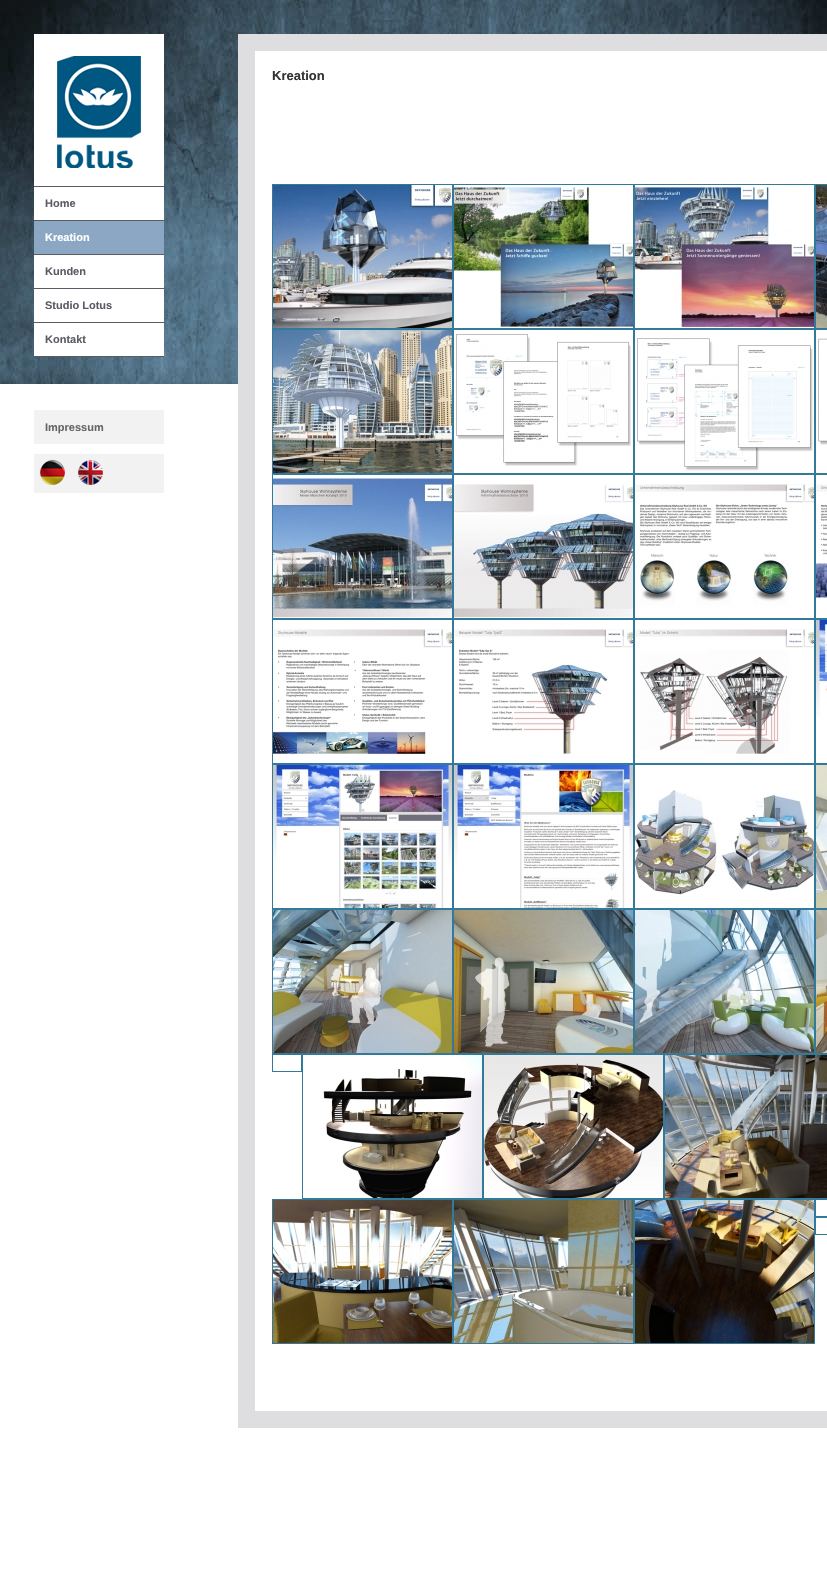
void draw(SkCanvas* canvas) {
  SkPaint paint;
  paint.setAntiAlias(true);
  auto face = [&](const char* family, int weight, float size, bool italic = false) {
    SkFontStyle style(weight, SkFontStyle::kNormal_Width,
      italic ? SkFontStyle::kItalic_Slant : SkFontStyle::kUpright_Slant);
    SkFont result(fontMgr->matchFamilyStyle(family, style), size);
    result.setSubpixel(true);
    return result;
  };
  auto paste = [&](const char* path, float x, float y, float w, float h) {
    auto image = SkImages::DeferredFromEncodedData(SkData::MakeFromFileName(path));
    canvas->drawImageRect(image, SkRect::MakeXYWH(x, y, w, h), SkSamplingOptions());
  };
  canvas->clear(0xffffffff);
  paste("img/1.png", 0, 0, 827, 384);
  paint.setColor(0xffdedee0);
  canvas->drawRect(SkRect::MakeXYWH(238, 34, 589, 1394), paint);
  paint.setColor(0xffffffff);
  canvas->drawRect(SkRect::MakeXYWH(255, 51, 572, 1360), paint);
  paint.setStroke(true);
  paint.setStrokeWidth(1);
  paint.setColor(0xff33799a);
  canvas->drawRect(SkRect::MakeXYWH(272.5f, 184.5f, 180, 144), paint);
  paste("img/2.png", 273, 185, 179, 143);
  canvas->drawRect(SkRect::MakeXYWH(453.5f, 184.5f, 180, 144), paint);
  paste("img/3.png", 454, 186, 179, 142);
  canvas->drawRect(SkRect::MakeXYWH(634.5f, 184.5f, 180, 144), paint);
  paste("img/4.png", 635, 186, 179, 142);
  canvas->drawRect(SkRect::MakeXYWH(815.5f, 184.5f, 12, 144), paint);
  paste("img/5.png", 816, 185, 11, 143);
  canvas->drawRect(SkRect::MakeXYWH(272.5f, 329.5f, 180, 144), paint);
  paste("img/6.png", 273, 330, 179, 143);
  canvas->drawRect(SkRect::MakeXYWH(453.5f, 329.5f, 180, 144), paint);
  paste("img/7.png", 456, 334, 175, 132);
  canvas->drawRect(SkRect::MakeXYWH(634.5f, 329.5f, 180, 144), paint);
  paste("img/8.png", 637, 338, 176, 133);
  canvas->drawRect(SkRect::MakeXYWH(815.5f, 329.5f, 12, 144), paint);
  paste("img/9.png", 818, 338, 9, 107);
  canvas->drawRect(SkRect::MakeXYWH(272.5f, 474.5f, 180, 144), paint);
  paste("img/10.png", 273, 475, 179, 143);
  canvas->drawRect(SkRect::MakeXYWH(453.5f, 474.5f, 180, 144), paint);
  paste("img/11.png", 454, 484, 179, 134);
  canvas->drawRect(SkRect::MakeXYWH(634.5f, 474.5f, 180, 144), paint);
  paste("img/12.png", 635, 484, 179, 134);
  canvas->drawRect(SkRect::MakeXYWH(815.5f, 474.5f, 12, 144), paint);
  paste("img/13.png", 816, 484, 11, 115);
  canvas->drawRect(SkRect::MakeXYWH(272.5f, 619.5f, 180, 144), paint);
  paste("img/14.png", 273, 629, 179, 126);
  canvas->drawRect(SkRect::MakeXYWH(453.5f, 619.5f, 180, 144), paint);
  paste("img/15.png", 454, 629, 179, 126);
  canvas->drawRect(SkRect::MakeXYWH(634.5f, 619.5f, 180, 144), paint);
  paste("img/16.png", 635, 629, 179, 125);
  canvas->drawRect(SkRect::MakeXYWH(815.5f, 619.5f, 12, 144), paint);
  paste("img/17.png", 816, 620, 11, 97);
  canvas->drawRect(SkRect::MakeXYWH(272.5f, 764.5f, 180, 144), paint);
  paste("img/18.png", 273, 765, 179, 143);
  canvas->drawRect(SkRect::MakeXYWH(453.5f, 764.5f, 180, 144), paint);
  paste("img/19.png", 454, 765, 179, 143);
  canvas->drawRect(SkRect::MakeXYWH(634.5f, 764.5f, 180, 144), paint);
  paste("img/20.png", 635, 790, 179, 105);
  canvas->drawRect(SkRect::MakeXYWH(815.5f, 764.5f, 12, 144), paint);
  paste("img/21.png", 816, 765, 11, 143);
  canvas->drawRect(SkRect::MakeXYWH(272.5f, 909.5f, 180, 144), paint);
  paste("img/22.png", 273, 910, 179, 143);
  canvas->drawRect(SkRect::MakeXYWH(453.5f, 909.5f, 180, 144), paint);
  paste("img/23.png", 454, 910, 179, 143);
  canvas->drawRect(SkRect::MakeXYWH(634.5f, 909.5f, 180, 144), paint);
  paste("img/24.png", 635, 910, 179, 143);
  canvas->drawRect(SkRect::MakeXYWH(815.5f, 909.5f, 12, 144), paint);
  paste("img/25.png", 816, 910, 11, 143);
  canvas->drawRect(SkRect::MakeXYWH(272.5f, 1054.5f, 29, 17), paint);
  canvas->drawRect(SkRect::MakeXYWH(302.5f, 1054.5f, 180, 144), paint);
  paste("img/26.png", 323, 1055, 159, 143);
  canvas->drawRect(SkRect::MakeXYWH(483.5f, 1054.5f, 180, 144), paint);
  paste("img/27.png", 484, 1055, 179, 143);
  canvas->drawRect(SkRect::MakeXYWH(664.5f, 1054.5f, 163, 144), paint);
  paste("img/28.png", 665, 1055, 162, 143);
  canvas->drawRect(SkRect::MakeXYWH(272.5f, 1199.5f, 180, 144), paint);
  paste("img/29.png", 273, 1200, 179, 143);
  canvas->drawRect(SkRect::MakeXYWH(453.5f, 1199.5f, 180, 144), paint);
  paste("img/30.png", 454, 1200, 179, 143);
  canvas->drawRect(SkRect::MakeXYWH(634.5f, 1199.5f, 180, 144), paint);
  paste("img/31.png", 635, 1200, 179, 143);
  canvas->drawRect(SkRect::MakeXYWH(815.5f, 1199.5f, 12, 17), paint);
  canvas->drawRect(SkRect::MakeXYWH(815.5f, 1217.5f, 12, 17), paint);
  paint.setStroke(false);
  paint.setColor(0xffffffff);
  canvas->drawRect(SkRect::MakeXYWH(34, 34, 130, 322), paint);
  paint.setColor(0xff595c64);
  canvas->drawRect(SkRect::MakeXYWH(34, 186, 130, 1), paint);
  paste("img/32.png", 57, 56, 84, 112);
  {
    const struct { float x, y, w, h; SkColor color; } items[] = {
      {34, 220, 130, 1, 0xff595c64},
      {34, 221, 130, 33, 0xff8ba7c4},
      {34, 254, 130, 1, 0xff595c64},
      {34, 288, 130, 1, 0xff595c64},
      {34, 322, 130, 1, 0xff595c64},
      {34, 356, 130, 1, 0xff595c64},
      {34, 410, 130, 34, 0xfff2f2f2},
      {34, 454, 130, 39, 0xfff2f2f2},
    };
    for (auto [x, y, w, h, color] : items) {
      paint.setColor(color);
      canvas->drawRect(SkRect::MakeXYWH(x, y, w, h), paint);
    }
  }
  paste("img/33.png", 40, 460, 25, 25);
  paste("img/34.png", 78, 460, 25, 25);
  auto f0 = face("Liberation Sans", 700, 13);
  paint.setColor(0xff333333);
  canvas->drawString("Kreation", 272, 80, f0, paint);
  auto f1 = face("Liberation Sans", 700, 11);
  paint.setColor(0xff595c64);
  canvas->drawString("Home", 45, 207, f1, paint);
  paint.setColor(0xffffffff);
  canvas->drawString("Kreation", 45, 241, f1, paint);
  paint.setColor(0xff595c64);
  {
    const struct { const char* s; float x, y; } items[] = {
      {"Kunden", 45, 275},
      {"Studio Lotus", 45, 309},
      {"Kontakt", 45, 343},
    };
    for (auto [s, x, y] : items) {
      canvas->drawString(s, x, y, f1, paint);
    }
  }
  paint.setColor(0xff666666);
  canvas->drawString("Impressum", 45, 431, f1, paint);
}
